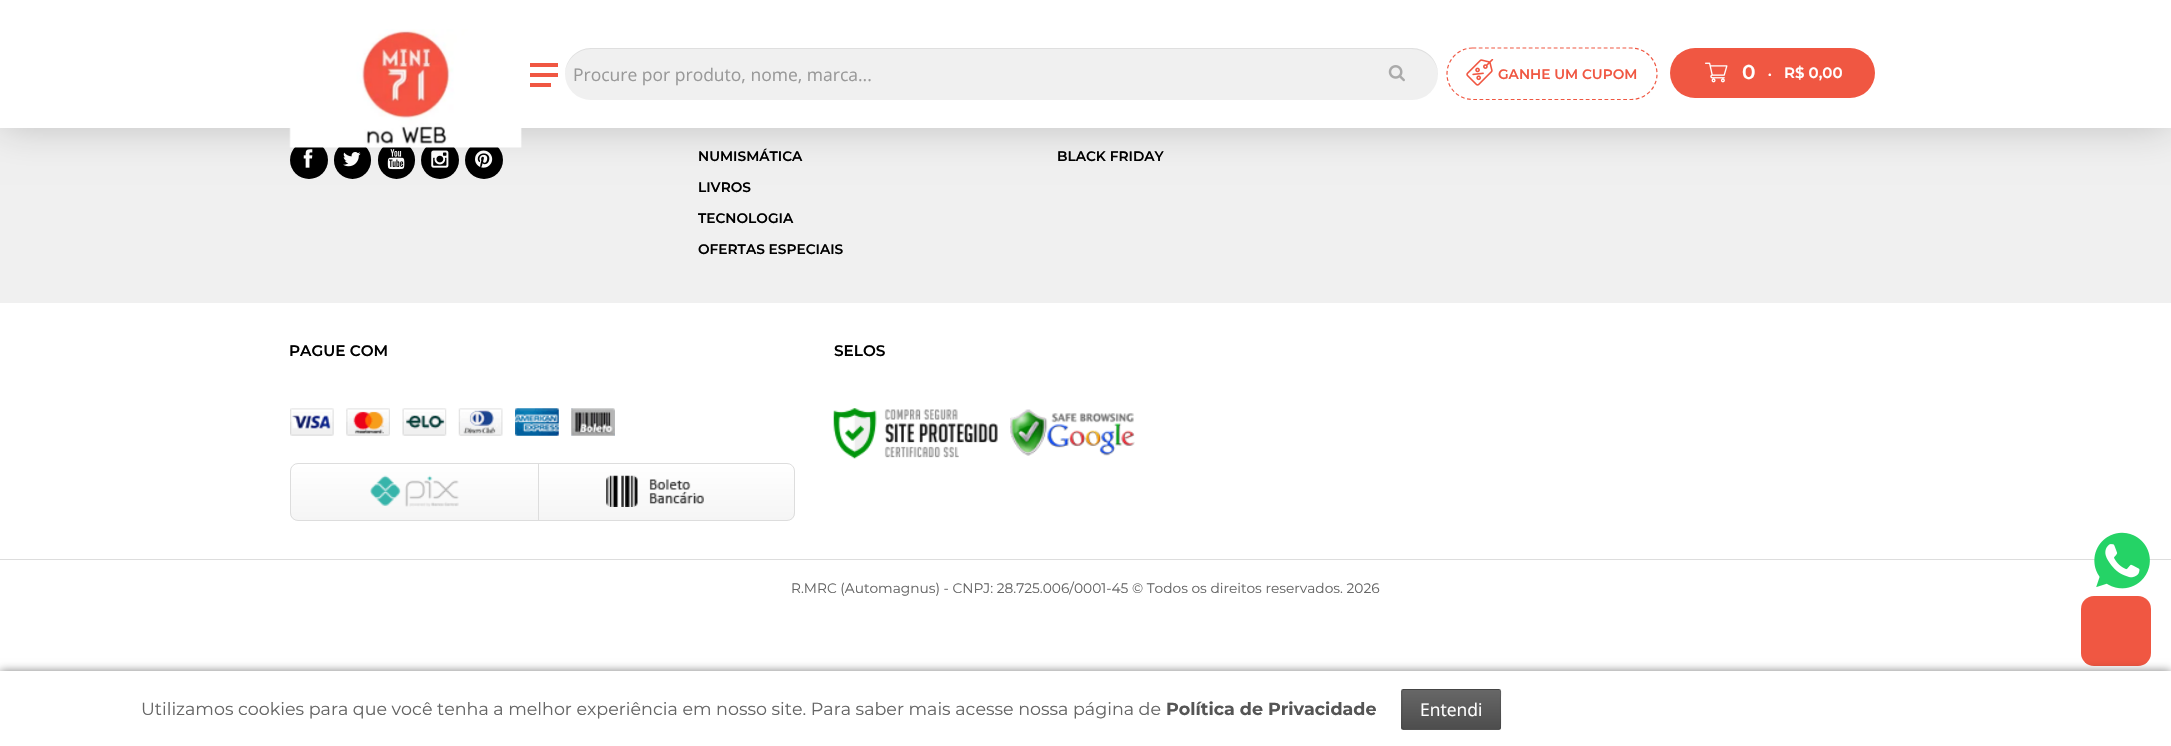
void draw(SkCanvas* canvas) {
  SkPaint paint;
  paint.setAntiAlias(true);
  auto face = [&](const char* family, int weight, float size, bool italic = false) {
    SkFontStyle style(weight, SkFontStyle::kNormal_Width,
      italic ? SkFontStyle::kItalic_Slant : SkFontStyle::kUpright_Slant);
    SkFont result(fontMgr->matchFamilyStyle(family, style), size);
    result.setSubpixel(true);
    return result;
  };
  auto paste = [&](const char* path, float x, float y, float w, float h) {
    auto image = SkImages::DeferredFromEncodedData(SkData::MakeFromFileName(path));
    canvas->drawImageRect(image, SkRect::MakeXYWH(x, y, w, h), SkSamplingOptions());
  };
  auto shape = [&](const char* data, bool evenOdd = false) {
    SkPath result = *SkParsePath::FromSVGString(data);
    if (evenOdd) result.setFillType(SkPathFillType::kEvenOdd);
    return result;
  };
  canvas->clear(0xffffffff);
  paint.setColor(0xfff0f0f0);
  canvas->drawRect(SkRect::MakeXYWH(0, 128, 2171, 175), paint);
  paint.setColor(0xff000000);
  canvas->drawCircle(309, 160, 19, paint);
  paste("img/5.png", 303, 149, 10, 19);
  canvas->drawRoundRect(SkRect::MakeXYWH(334, 141, 37, 38), 18.5f, 18.5f, paint);
  paste("img/6.png", 343, 152, 18, 15);
  canvas->drawRoundRect(SkRect::MakeXYWH(378, 141, 37, 38), 18.5f, 18.5f, paint);
  paste("img/7.png", 387, 149, 18, 21);
  canvas->drawCircle(440, 160, 19, paint);
  paste("img/8.png", 431, 150, 18, 18);
  canvas->drawCircle(484, 160, 19, paint);
  paste("img/9.png", 475, 150, 18, 18);
  paint.setColor(0x33000000);
  paint.setMaskFilter(SkMaskFilter::MakeBlur(kNormal_SkBlurStyle, 19));
  canvas->drawRect(SkRect::MakeXYWH(0, 0, 2171, 128), paint);
  paint.setMaskFilter(nullptr);
  paint.setColor(0xffffffff);
  canvas->drawRect(SkRect::MakeXYWH(0, 0, 2171, 128), paint);
  paste("img/1.png", 289, 29, 233, 119);
  {
    const struct { float x, y, w, h; SkColor color; } items[] = {
      {530, 63, 28, 4, 0xfff05742},
      {530, 73, 28, 4, 0xfff05742},
      {530, 83, 21, 4, 0xfff05742},
    };
    for (auto [x, y, w, h, color] : items) {
      paint.setColor(color);
      canvas->drawRect(SkRect::MakeXYWH(x, y, w, h), paint);
    }
  }
  paint.setColor(0xfff0f0f0);
  canvas->drawRoundRect(SkRect::MakeXYWH(565, 48, 873, 52), 26, 26, paint);
  paint.setColor(0x12000000);
  canvas->drawPath(shape("M591 49H1411C1426 49 1438 61 1438 75V74C1438 60 1426 48 1412 48H591C577 48 565 60 565 74V75C565 61 577 49 591 49Z"), paint);
  paste("img/2.png", 1388, 65, 17, 17);
  paint.setStroke(true);
  paint.setStrokeWidth(1.2f);
  paint.setColor(0xfff05742);
  paint.setPathEffect(SkDashPathEffect::Make({{3.75f, 2.5f}}, 0));
  canvas->drawPath(shape("M1472.5 48H1631C1645.5 48 1657 59.5 1657 74C1657 88 1645.5 99.5 1631 99.5H1472.5C1458.5 99.5 1447 88 1447 74C1447 59.5 1458.5 48 1472.5 48Z"), paint);
  paint.setPathEffect(nullptr);
  paste("img/3.png", 1466, 59, 28, 27);
  paint.setStroke(false);
  canvas->drawRoundRect(SkRect::MakeXYWH(1670, 48, 205, 50), 25, 25, paint);
  paste("img/4.png", 1705, 62, 23, 21);
  paste("img/10.png", 290, 408, 44, 28);
  paste("img/11.png", 346, 408, 44, 28);
  paste("img/12.png", 402, 408, 45, 28);
  paste("img/13.png", 458, 408, 45, 28);
  paste("img/14.png", 515, 408, 44, 28);
  paste("img/15.png", 571, 408, 44, 28);
  canvas->save();
  canvas->clipPath(shape("M298 463H787C791.5 463 795 466.5 795 471V513C795 517.5 791.5 521 787 521H298C293.5 521 290 517.5 290 513V471C290 466.5 293.5 463 298 463Z"), true);
  {
    const SkColor colors[] = {0xffffffff, 0xfff5f5f5};
    const float stops[] = {0, 1};
    const SkPoint ends[] = {{543, 464}, {543, 520}};
    paint.setShader(SkGradientShader::MakeLinear(ends, colors, stops, 2, SkTileMode::kClamp));
    paint.setAlpha(255);
  }
  canvas->drawRect(SkRect::MakeXYWH(290, 464, 505, 56), paint);
  canvas->restore();
  paint.setStroke(true);
  paint.setStrokeWidth(1);
  paint.setShader(nullptr);
  paint.setColor(0xffdddddd);
  canvas->drawRoundRect(SkRect::MakeXYWH(290.5f, 463.5f, 504, 57), 7.5f, 7.5f, paint);
  paste("img/16.png", 370, 475, 89, 32);
  paint.setStroke(false);
  canvas->drawRect(SkRect::MakeXYWH(538, 464, 1, 56), paint);
  paste("img/17.png", 606, 475, 98, 32);
  paste("img/18.png", 833, 408, 165, 51);
  paste("img/19.png", 1010, 409, 125, 47);
  canvas->drawRect(SkRect::MakeXYWH(0, 559, 2171, 1), paint);
  paste("img/20.png", 2094, 532, 56, 57);
  paint.setColor(0xfff05742);
  canvas->drawRoundRect(SkRect::MakeXYWH(2081, 596, 70, 70), 13, 13, paint);
  canvas->save();
  canvas->clipPath(shape("M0 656H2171V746H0ZM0 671H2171V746H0Z", true), true);
  paint.setColor(0x80000000);
  paint.setMaskFilter(SkMaskFilter::MakeBlur(kNormal_SkBlurStyle, 4.5f));
  canvas->drawRect(SkRect::MakeXYWH(0, 671, 2171, 75), paint);
  paint.setMaskFilter(nullptr);
  canvas->restore();
  paint.setColor(0xf2ffffff);
  canvas->drawRect(SkRect::MakeXYWH(0, 671, 2171, 1), paint);
  paint.setColor(0xff555555);
  canvas->drawRoundRect(SkRect::MakeXYWH(1401, 689, 100, 41), 2.5f, 2.5f, paint);
  {
    const SkColor colors[] = {0x1affffff, 0x1a000000};
    const float stops[] = {0, 1};
    const SkPoint ends[] = {{1451, 651}, {1451, 690}};
    paint.setShader(SkGradientShader::MakeLinear(ends, colors, stops, 2, SkTileMode::kClamp));
    paint.setAlpha(255);
  }
  canvas->drawRect(SkRect::MakeXYWH(1401, 689, 100, 1), paint);
  {
    const SkColor colors[] = {0x1affffff, 0x1a000000};
    const float stops[] = {0, 1};
    const SkPoint ends[] = {{1451, 690}, {1451, 729}};
    paint.setShader(SkGradientShader::MakeLinear(ends, colors, stops, 2, SkTileMode::kClamp));
    paint.setAlpha(255);
  }
  canvas->drawRect(SkRect::MakeXYWH(1401, 690, 100, 39), paint);
  {
    const SkColor colors[] = {0x1affffff, 0x1a000000};
    const float stops[] = {0, 1};
    const SkPoint ends[] = {{1451, 729}, {1451, 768}};
    paint.setShader(SkGradientShader::MakeLinear(ends, colors, stops, 2, SkTileMode::kClamp));
    paint.setAlpha(255);
  }
  canvas->drawRect(SkRect::MakeXYWH(1401, 729, 100, 1), paint);
  paint.setStroke(true);
  paint.setStrokeWidth(1.2f);
  paint.setShader(nullptr);
  paint.setColor(0x33000000);
  canvas->drawPath(shape("M1500 729L1499 729.5H1419.5H1404L1402.5 729"), paint);
  paint.setColor(0x1a000000);
  canvas->drawPath(shape("M1402.5 729C1401 727.5 1402 712 1402 709.5V697.5C1402 697 1400.5 689.5 1404 689.5H1499C1502 689.5 1500.5 697 1500.5 697.5V709.5C1500.5 712 1501.5 727.5 1500 729"), paint);
  auto f0 = face("Open Sans", 400, 17.5f);
  paint.setStroke(false);
  paint.setColor(0xff999999);
  canvas->drawString("Procure por produto, nome, marca...", 573, 81, f0, paint);
  auto f1 = face("Montserrat", 600, 13.75f);
  paint.setColor(0xfff05742);
  canvas->drawString("GANHE UM CUPOM", 1498, 79, f1, paint);
  auto f2 = face("Montserrat", 600, 20);
  paint.setColor(0xffffffff);
  canvas->drawString("0", 1742, 79, f2, paint);
  auto f3 = face("Montserrat", 600, 15);
  canvas->drawString(".", 1768, 76, f3, paint);
  canvas->drawString("R$ 0,00", 1784, 78, f3, paint);
  paint.setColor(0xff000000);
  {
    const struct { const char* s; float x, y; } items[] = {
      {"NUMISMÁTICA", 698, 161},
      {"LIVROS", 698, 192},
      {"TECNOLOGIA", 698, 223},
      {"OFERTAS ESPECIAIS", 698, 254},
      {"BLACK FRIDAY", 1057, 161},
    };
    for (auto [s, x, y] : items) {
      canvas->drawString(s, x, y, f1, paint);
    }
  }
  auto f4 = face("Montserrat", 600, 15.25f);
  canvas->drawString("PAGUE COM", 289, 356, f4, paint);
  canvas->drawString("SELOS", 834, 356, f4, paint);
  auto f5 = face("Montserrat", 400, 13.75f);
  paint.setColor(0xff666666);
  canvas->drawString("R.MRC (Automagnus) - CNPJ: 28.725.006/0001-45 © Todos os direitos reservados. 2026", 791, 593, f5, paint);
  auto f6 = face("Montserrat", 400, 17.5f);
  canvas->drawString("Utilizamos cookies para que você tenha a melhor experiência em nosso site. Para saber mais acesse nossa página de", 141, 715, f6, paint);
  auto f7 = face("Montserrat", 700, 17.5f);
  paint.setColor(0xff555555);
  canvas->drawString("Política de Privacidade", 1166, 715, f7, paint);
  paint.setColor(0xffffffff);
  canvas->drawString("Entendi", 1420, 716, f0, paint);
}
